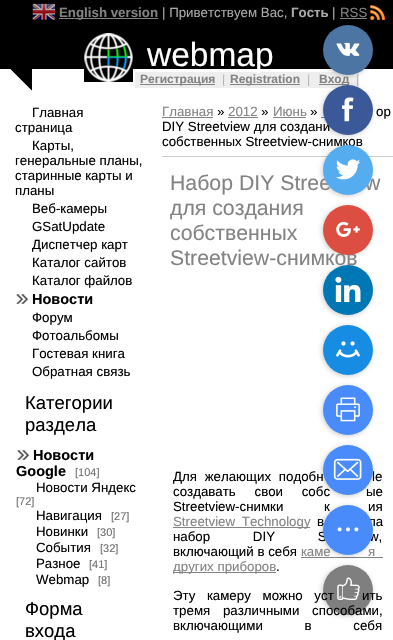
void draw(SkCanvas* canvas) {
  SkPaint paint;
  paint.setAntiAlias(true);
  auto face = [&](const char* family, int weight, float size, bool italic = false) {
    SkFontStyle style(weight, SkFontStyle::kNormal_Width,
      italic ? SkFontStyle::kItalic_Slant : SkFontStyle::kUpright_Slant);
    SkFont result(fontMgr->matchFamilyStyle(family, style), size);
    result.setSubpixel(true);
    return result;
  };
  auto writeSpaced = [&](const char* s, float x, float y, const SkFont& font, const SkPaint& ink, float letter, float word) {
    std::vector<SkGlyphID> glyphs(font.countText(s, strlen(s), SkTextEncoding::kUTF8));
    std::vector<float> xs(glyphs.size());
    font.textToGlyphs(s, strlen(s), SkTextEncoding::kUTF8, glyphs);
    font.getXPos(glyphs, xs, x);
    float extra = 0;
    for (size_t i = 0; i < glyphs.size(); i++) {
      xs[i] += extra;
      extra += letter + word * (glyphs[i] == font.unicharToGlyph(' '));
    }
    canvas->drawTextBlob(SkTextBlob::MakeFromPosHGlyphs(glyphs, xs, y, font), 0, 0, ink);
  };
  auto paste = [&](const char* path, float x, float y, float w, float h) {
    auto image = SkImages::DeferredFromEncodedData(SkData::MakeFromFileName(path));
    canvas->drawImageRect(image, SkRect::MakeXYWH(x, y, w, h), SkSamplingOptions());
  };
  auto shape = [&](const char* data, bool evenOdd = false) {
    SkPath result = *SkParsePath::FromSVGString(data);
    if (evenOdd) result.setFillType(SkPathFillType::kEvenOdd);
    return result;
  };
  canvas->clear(0xffffffff);
  paint.setColor(0xff000000);
  canvas->drawRect(SkRect::MakeXYWH(0, 0, 393, 69), paint);
  paste("img/1.png", 32, 3, 24, 17);
  paint.setColor(0xff838383);
  canvas->drawRect(SkRect::MakeXYWH(59, 18, 99, 1), paint);
  canvas->drawRect(SkRect::MakeXYWH(340, 18, 27, 1), paint);
  paste("img/2.png", 370, 5, 15, 15);
  paste("img/3.png", 84, 33, 49, 49);
  paste("img/4.png", 10, 69, 22, 22);
  paint.setColor(0xffeeeeee);
  canvas->drawRect(SkRect::MakeXYWH(135, 72, 224, 16), paint);
  paint.setColor(0xff838383);
  canvas->drawRect(SkRect::MakeXYWH(140, 84, 75, 1), paint);
  paste("img/5.png", 223, 74, 2, 12);
  canvas->drawRect(SkRect::MakeXYWH(230, 84, 70, 1), paint);
  paste("img/5.png", 308, 74, 2, 12);
  canvas->drawRect(SkRect::MakeXYWH(319, 84, 30, 1), paint);
  paste("img/5.png", 357, 74, 2, 12);
  paste("img/6.png", 16, 294, 12, 10);
  paste("img/6.png", 17, 450, 12, 10);
  {
    const struct { float x, y, w, h; SkColor color; } items[] = {
      {162, 117, 51, 1, 0xff838383},
      {228, 117, 30, 1, 0xff838383},
      {273, 117, 33, 1, 0xff838383},
      {321, 117, 4, 1, 0xff838383},
      {162, 156, 231, 1, 0xffcccccc},
      {173, 527, 137, 1, 0xff838383},
      {301, 557, 82, 1, 0xff838383},
      {173, 572, 103, 1, 0xff838383},
    };
    for (auto [x, y, w, h, color] : items) {
      paint.setColor(color);
      canvas->drawRect(SkRect::MakeXYWH(x, y, w, h), paint);
    }
  }
  paint.setColor(0x33000000);
  paint.setMaskFilter(SkMaskFilter::MakeBlur(kNormal_SkBlurStyle, 2.5f));
  canvas->drawRoundRect(SkRect::MakeXYWH(322, 26, 50, 50), 25, 25, paint);
  paint.setMaskFilter(nullptr);
  paint.setMaskFilter(SkMaskFilter::MakeBlur(kNormal_SkBlurStyle, 2.5f));
  canvas->drawRoundRect(SkRect::MakeXYWH(322, 86, 50, 50), 25, 25, paint);
  paint.setMaskFilter(nullptr);
  paint.setMaskFilter(SkMaskFilter::MakeBlur(kNormal_SkBlurStyle, 2.5f));
  canvas->drawRoundRect(SkRect::MakeXYWH(322, 146, 50, 50), 25, 25, paint);
  paint.setMaskFilter(nullptr);
  paint.setMaskFilter(SkMaskFilter::MakeBlur(kNormal_SkBlurStyle, 2.5f));
  canvas->drawRoundRect(SkRect::MakeXYWH(322, 206, 50, 50), 25, 25, paint);
  paint.setMaskFilter(nullptr);
  paint.setMaskFilter(SkMaskFilter::MakeBlur(kNormal_SkBlurStyle, 2.5f));
  canvas->drawRoundRect(SkRect::MakeXYWH(322, 266, 50, 50), 25, 25, paint);
  paint.setMaskFilter(nullptr);
  paint.setMaskFilter(SkMaskFilter::MakeBlur(kNormal_SkBlurStyle, 2.5f));
  canvas->drawRoundRect(SkRect::MakeXYWH(322, 326, 50, 50), 25, 25, paint);
  paint.setMaskFilter(nullptr);
  paint.setColor(0xff168de2);
  canvas->drawCircle(348, 350, 25, paint);
  paste("img/12.png", 336, 341, 24, 17);
  paint.setColor(0x33000000);
  paint.setMaskFilter(SkMaskFilter::MakeBlur(kNormal_SkBlurStyle, 2.5f));
  canvas->drawRoundRect(SkRect::MakeXYWH(322, 386, 50, 50), 25, 25, paint);
  paint.setMaskFilter(nullptr);
  paint.setColor(0xff498bfa);
  canvas->drawCircle(348, 410, 25, paint);
  paste("img/13.png", 336, 397, 24, 25);
  paint.setColor(0x33000000);
  paint.setMaskFilter(SkMaskFilter::MakeBlur(kNormal_SkBlurStyle, 2.5f));
  canvas->drawRoundRect(SkRect::MakeXYWH(322, 446, 50, 50), 25, 25, paint);
  paint.setMaskFilter(nullptr);
  paint.setMaskFilter(SkMaskFilter::MakeBlur(kNormal_SkBlurStyle, 2.5f));
  canvas->drawRoundRect(SkRect::MakeXYWH(322, 506, 50, 50), 25, 25, paint);
  paint.setMaskFilter(nullptr);
  canvas->save();
  canvas->clipPath(shape("M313 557H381V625H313ZM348 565C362 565 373 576 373 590C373 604 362 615 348 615C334 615 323 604 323 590C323 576 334 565 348 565Z", true), true);
  paint.setMaskFilter(SkMaskFilter::MakeBlur(kNormal_SkBlurStyle, 2.5f));
  canvas->drawRoundRect(SkRect::MakeXYWH(322, 566, 50, 50), 25, 25, paint);
  paint.setMaskFilter(nullptr);
  canvas->restore();
  auto f0 = face("Liberation Sans", 700, 13.3f);
  paint.setColor(0xff838383);
  canvas->drawString("English version", 59, 17, f0, paint);
  auto f1 = face("Liberation Sans", 400, 13.3f);
  paint.setColor(0xffaaaaaa);
  canvas->drawString("| Приветствуем Вас,", 162, 17, f1, paint);
  canvas->drawString("Гость", 291, 17, f0, paint);
  canvas->drawString("|", 332, 17, f1, paint);
  paint.setColor(0xff838383);
  canvas->drawString("RSS", 340, 17, f1, paint);
  auto f2 = face("Liberation Sans", 400, 33.5f);
  paint.setColor(0xffffffff);
  canvas->drawString("webmap", 147, 66, f2, paint);
  auto f3 = face("Liberation Sans", 700, 12);
  paint.setColor(0xff838383);
  {
    const struct { const char* s; float x, y; } items[] = {
      {"Регистрация", 140, 83},
      {"Registration", 230, 83},
      {"Вход", 319, 83},
    };
    for (auto [s, x, y] : items) {
      canvas->drawString(s, x, y, f3, paint);
    }
  }
  paint.setColor(0xff000000);
  {
    const struct { const char* s; float x, y; } items[] = {
      {"Главная", 32, 117},
      {"страница", 15, 132},
      {"Карты,", 32, 150},
      {"генеральные планы,", 15, 165},
      {"старинные карты и", 15, 180},
      {"планы", 15, 195},
      {"Веб-камеры", 32, 213},
      {"GSatUpdate", 32, 231},
      {"Диспетчер карт", 32, 249},
      {"Каталог сайтов", 32, 267},
      {"Каталог файлов", 32, 285},
    };
    for (auto [s, x, y] : items) {
      canvas->drawString(s, x, y, f1, paint);
    }
  }
  auto f4 = face("Liberation Sans", 700, 14.5f);
  canvas->drawString("Новости", 32, 304, f4, paint);
  {
    const struct { const char* s; float x, y; } items[] = {
      {"Форум", 32, 322},
      {"Фотоальбомы", 32, 340},
      {"Гостевая книга", 32, 358},
      {"Обратная связь", 32, 376},
    };
    for (auto [s, x, y] : items) {
      canvas->drawString(s, x, y, f1, paint);
    }
  }
  auto f5 = face("Liberation Sans", 400, 18.5f);
  canvas->drawString("Категории", 25, 409, f5, paint);
  canvas->drawString("раздела", 25, 431, f5, paint);
  canvas->drawString("Новости", 33, 460, f4, paint);
  canvas->drawString("Google", 16, 476, f4, paint);
  auto f6 = face("Liberation Sans", 400, 11);
  paint.setColor(0xff6e6e6e);
  canvas->drawString("[104]", 75, 476, f6, paint);
  paint.setColor(0xff000000);
  canvas->drawString("Новости Яндекс", 36, 492, f1, paint);
  paint.setColor(0xff6e6e6e);
  canvas->drawString("[72]", 16, 505, f6, paint);
  paint.setColor(0xff000000);
  canvas->drawString("Навигация", 36, 520, f1, paint);
  paint.setColor(0xff6e6e6e);
  canvas->drawString("[27]", 111, 520, f6, paint);
  paint.setColor(0xff000000);
  canvas->drawString("Новинки", 36, 536, f1, paint);
  paint.setColor(0xff6e6e6e);
  canvas->drawString("[30]", 97, 536, f6, paint);
  paint.setColor(0xff000000);
  canvas->drawString("События", 36, 552, f1, paint);
  paint.setColor(0xff6e6e6e);
  canvas->drawString("[32]", 100, 552, f6, paint);
  paint.setColor(0xff000000);
  canvas->drawString("Разное", 36, 568, f1, paint);
  paint.setColor(0xff6e6e6e);
  canvas->drawString("[41]", 89, 568, f6, paint);
  paint.setColor(0xff000000);
  canvas->drawString("Webmap", 36, 584, f1, paint);
  paint.setColor(0xff6e6e6e);
  canvas->drawString("[8]", 98, 584, f6, paint);
  paint.setColor(0xff000000);
  canvas->drawString("Форма", 25, 615, f5, paint);
  canvas->drawString("входа", 25, 637, f5, paint);
  paint.setColor(0xff838383);
  canvas->drawString("Главная", 162, 116, f1, paint);
  paint.setColor(0xff000000);
  canvas->drawString("»", 217, 116, f1, paint);
  paint.setColor(0xff838383);
  canvas->drawString("2012", 228, 116, f1, paint);
  paint.setColor(0xff000000);
  canvas->drawString("»", 261, 116, f1, paint);
  paint.setColor(0xff838383);
  canvas->drawString("Июнь", 273, 116, f1, paint);
  paint.setColor(0xff000000);
  {
    const struct { const char* s; float x, y; } items[] = {
      {"»", 310, 116},
      {"ор", 376, 116},
      {"DIY Streetview для создани", 162, 131},
      {"собственных Streetview-снимков", 162, 146},
    };
    for (auto [s, x, y] : items) {
      canvas->drawString(s, x, y, f1, paint);
    }
  }
  auto f7 = face("Liberation Sans", 400, 21.25f);
  paint.setColor(0xff838383);
  {
    const struct { const char* s; float x, y; } items[] = {
      {"Набор DIY Stree", 170, 190},
      {"w", 365, 190},
      {"для создания", 170, 215},
      {"собственных", 170, 240},
      {"Streetview-снимков", 170, 265},
    };
    for (auto [s, x, y] : items) {
      canvas->drawString(s, x, y, f7, paint);
    }
  }
  paint.setColor(0xff000000);
  writeSpaced("Для желающих подобн", 173, 481, f1, paint, 0, 4);
  writeSpaced("le", 372, 481, f1, paint, 0, 4);
  writeSpaced("создавать свои собс", 173, 496, f1, paint, 0, 15);
  writeSpaced("ые", 366, 496, f1, paint, 0, 15);
  writeSpaced("Streetview-снимки к", 173, 511, f1, paint, 0, 37);
  writeSpaced("ия", 368, 511, f1, paint, 0, 37);
  paint.setColor(0xff838383);
  writeSpaced("Streetview Technology", 173, 526, f1, paint, 0, 3);
  paint.setColor(0xff000000);
  canvas->drawString("в", 317, 526, f1, paint);
  canvas->drawString("ла", 368, 526, f1, paint);
  writeSpaced("набор DIY S", 173, 541, f1, paint, 0, 39);
  writeSpaced("w,", 369, 541, f1, paint, 0, 39);
  canvas->drawString("включающий в себя", 173, 556, f1, paint);
  paint.setColor(0xff838383);
  {
    const struct { const char* s; float x, y; } items[] = {
      {"каме", 301, 556},
      {"я", 368, 556},
      {"других приборов", 173, 571},
    };
    for (auto [s, x, y] : items) {
      canvas->drawString(s, x, y, f1, paint);
    }
  }
  paint.setColor(0xff000000);
  canvas->drawString(".", 276, 571, f1, paint);
  writeSpaced("Эту камеру можно уст", 173, 600, f1, paint, 0, 8);
  writeSpaced("ить", 362, 600, f1, paint, 0, 8);
  writeSpaced("тремя различными способами,", 173, 615, f1, paint, 0, 9);
  writeSpaced("включающими в себя", 173, 630, f1, paint, 0, 38);
  paint.setColor(0xff4d75a3);
  canvas->drawCircle(348, 50, 25, paint);
  paste("img/7.png", 336, 42, 24, 14);
  paint.setColor(0xff3b5998);
  canvas->drawCircle(348, 110, 25, paint);
  paste("img/8.png", 342, 97, 12, 25);
  paint.setColor(0xff55acee);
  canvas->drawCircle(348, 170, 25, paint);
  paste("img/9.png", 336, 159, 25, 21);
  paint.setColor(0xffdc4e41);
  canvas->drawCircle(348, 230, 25, paint);
  paste("img/10.png", 336, 221, 24, 16);
  paint.setColor(0xff0077b5);
  canvas->drawCircle(348, 290, 25, paint);
  paste("img/11.png", 335, 276, 26, 26);
  paint.setColor(0xff498bfa);
  canvas->drawCircle(348, 470, 25, paint);
  paste("img/14.png", 333, 458, 29, 22);
  canvas->drawCircle(348, 530, 25, paint);
  paste("img/15.png", 337, 527, 22, 5);
  paint.setColor(0x80000000);
  canvas->drawCircle(348, 590, 25, paint);
  paste("img/16.png", 337, 577, 23, 23);
}
